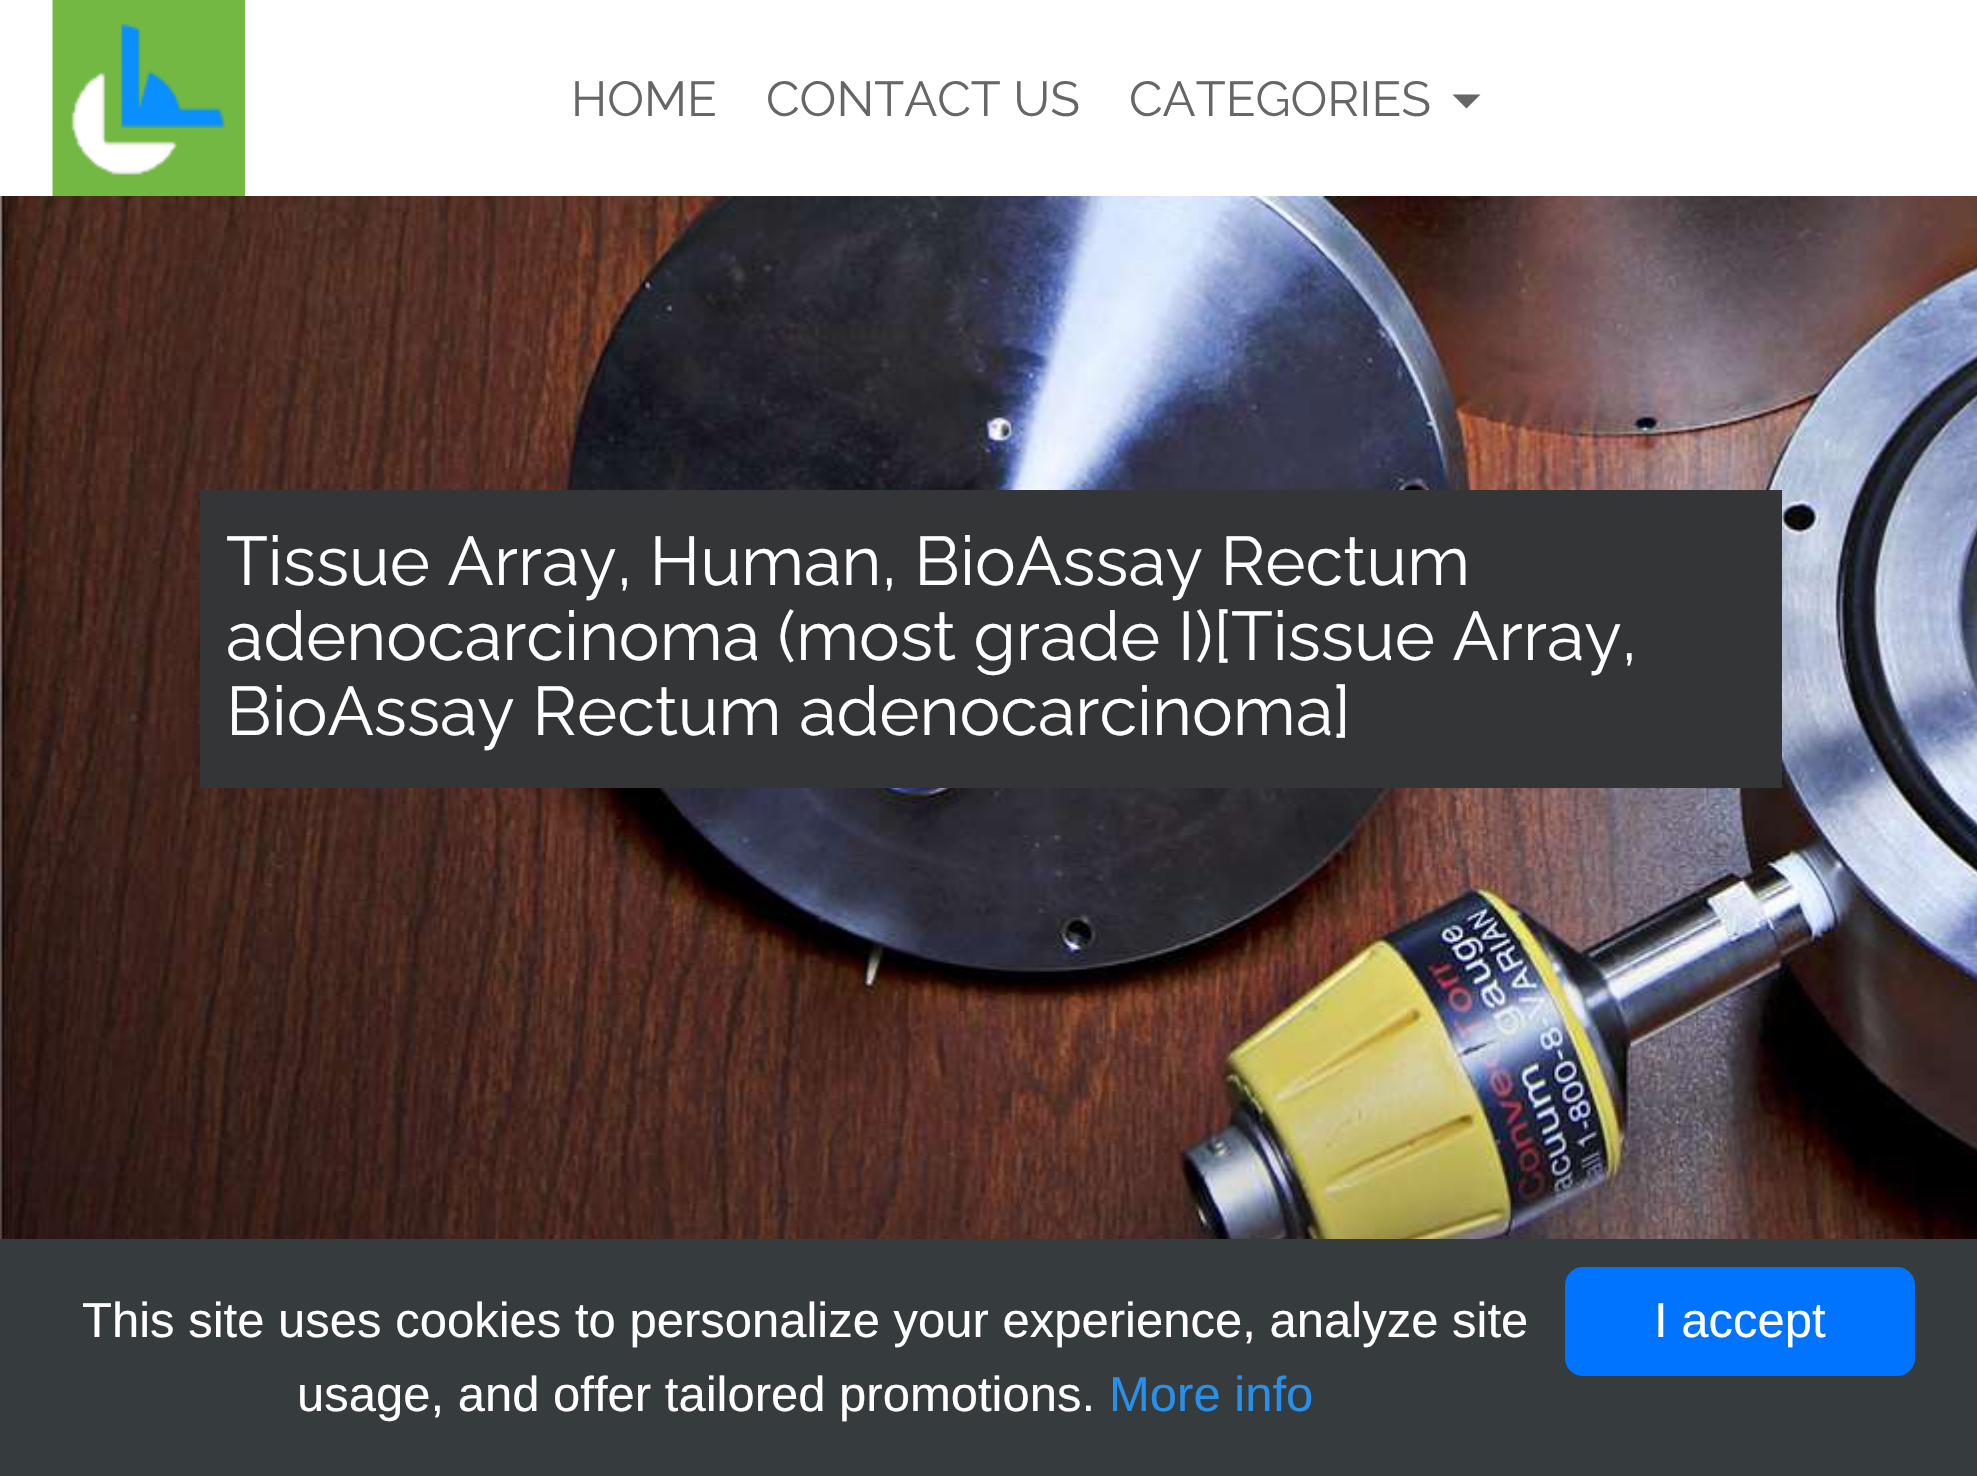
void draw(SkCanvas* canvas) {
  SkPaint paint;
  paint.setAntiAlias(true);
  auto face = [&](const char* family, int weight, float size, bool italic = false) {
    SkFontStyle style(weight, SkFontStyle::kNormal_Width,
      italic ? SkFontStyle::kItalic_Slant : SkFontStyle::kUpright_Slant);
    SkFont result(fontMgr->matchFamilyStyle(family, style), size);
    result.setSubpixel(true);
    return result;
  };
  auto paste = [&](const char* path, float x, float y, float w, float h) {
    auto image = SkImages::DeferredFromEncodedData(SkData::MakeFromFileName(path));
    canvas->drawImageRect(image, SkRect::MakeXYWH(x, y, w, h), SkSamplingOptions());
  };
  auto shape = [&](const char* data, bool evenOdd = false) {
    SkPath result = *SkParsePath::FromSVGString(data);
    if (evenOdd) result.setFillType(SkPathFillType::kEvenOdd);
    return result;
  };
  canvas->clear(0xffffffff);
  paste("img/1.png", 52, 0, 193, 196);
  paint.setColor(0xff666666);
  canvas->drawPath(shape("M1452.5 94.5H1480.5L1466.5 108.5Z"), paint);
  paste("img/2.png", 0, 196, 1977, 1043);
  paint.setColor(0xff343537);
  canvas->drawRect(SkRect::MakeXYWH(200, 490, 1582, 298), paint);
  paint.setColor(0xff363b3e);
  canvas->drawRect(SkRect::MakeXYWH(0, 1239, 1977, 237), paint);
  paint.setColor(0xff0073ff);
  canvas->drawRoundRect(SkRect::MakeXYWH(1565, 1267, 350, 109), 18, 18, paint);
  auto f0 = face("Raleway", 400, 49);
  paint.setColor(0xff666666);
  {
    const struct { const char* s; float x, y; } items[] = {
      {"HOME", 571, 116},
      {"CONTACT US", 766, 116},
      {"CATEGORIES", 1129, 116},
    };
    for (auto [s, x, y] : items) {
      canvas->drawString(s, x, y, f0, paint);
    }
  }
  auto f1 = face("Raleway", 400, 68.6f);
  paint.setColor(0xffffffff);
  {
    const struct { const char* s; float x, y; } items[] = {
      {"Tissue Array, Human, BioAssay Rectum", 226, 585},
      {"adenocarcinoma (most grade I)[Tissue Array,", 226, 660},
      {"BioAssay Rectum adenocarcinoma]", 226, 735},
    };
    for (auto [s, x, y] : items) {
      canvas->drawString(s, x, y, f1, paint);
    }
  }
  auto f2 = face("Liberation Sans", 400, 49);
  canvas->drawString("This site uses cookies to personalize your experience, analyze site", 82, 1337, f2, paint);
  canvas->drawString("usage, and offer tailored promotions.", 297, 1411, f2, paint);
  paint.setColor(0xff2990ea);
  canvas->drawString("More info", 1109, 1411, f2, paint);
  paint.setColor(0xffffffff);
  canvas->drawString("I accept", 1654, 1337, f2, paint);
}
